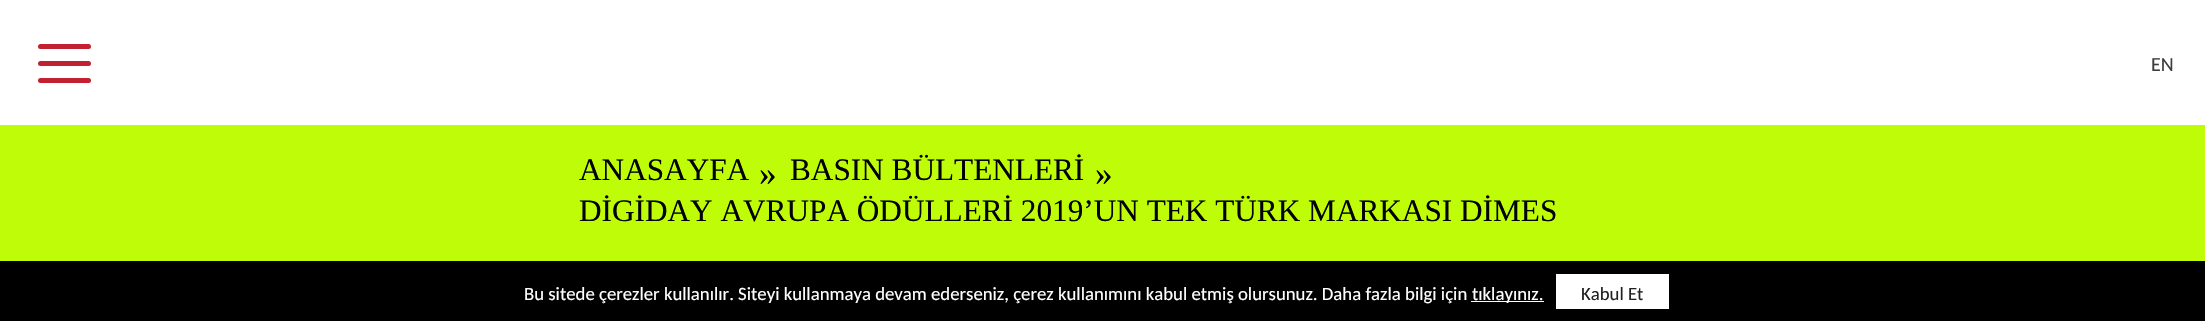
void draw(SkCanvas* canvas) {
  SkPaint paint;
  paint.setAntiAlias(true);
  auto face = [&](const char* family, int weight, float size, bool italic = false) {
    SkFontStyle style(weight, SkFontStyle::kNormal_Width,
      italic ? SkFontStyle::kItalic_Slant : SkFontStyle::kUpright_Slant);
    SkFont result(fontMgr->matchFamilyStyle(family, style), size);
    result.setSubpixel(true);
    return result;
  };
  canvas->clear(0xffbefd07);
  paint.setColor(0xffffffff);
  canvas->drawRect(SkRect::MakeXYWH(0, 0, 2205, 125), paint);
  paint.setColor(0xffc12130);
  canvas->drawRoundRect(SkRect::MakeXYWH(38, 44, 53, 5), 2.5f, 2.5f, paint);
  canvas->drawRoundRect(SkRect::MakeXYWH(38, 61, 53, 5), 2.5f, 2.5f, paint);
  canvas->drawRoundRect(SkRect::MakeXYWH(38, 78, 53, 5), 2.5f, 2.5f, paint);
  {
    const struct { float x, y, w, h; SkColor color; } items[] = {
      {0, 261, 2205, 60, 0xff000000},
      {1471, 301, 73, 1, 0xffffffff},
      {1556, 274, 113, 35, 0xffffffff},
    };
    for (auto [x, y, w, h, color] : items) {
      paint.setColor(color);
      canvas->drawRect(SkRect::MakeXYWH(x, y, w, h), paint);
    }
  }
  auto f0 = face("Carlito", 400, 20);
  paint.setColor(0xff3d3d3d);
  canvas->drawString("EN", 2151, 71, f0, paint);
  auto f1 = face("Liberation Serif", 400, 31.25f);
  paint.setColor(0xff000000);
  canvas->drawString("ANASAYFA", 579, 180, f1, paint);
  auto f2 = face("Liberation Serif", 400, 35);
  canvas->drawString("»", 759, 185, f2, paint);
  canvas->drawString("BASIN BÜLTENLERİ", 790, 180, f1, paint);
  canvas->drawString("»", 1095, 185, f2, paint);
  canvas->drawString("DİGİDAY AVRUPA ÖDÜLLERİ 2019’UN TEK TÜRK MARKASI DİMES", 579, 221, f1, paint);
  auto f3 = face("Carlito", 400, 18.75f);
  paint.setColor(0xffffffff);
  canvas->drawString("Bu sitede çerezler kullanılır. Siteyi kullanmaya devam ederseniz, çerez kullanımını kabul etmiş olursunuz. Daha fazla bilgi için", 524, 300, f3, paint);
  canvas->drawString("tıklayınız.", 1472, 300, f3, paint);
  paint.setColor(0xff212121);
  canvas->drawString("Kabul Et", 1581, 300, f3, paint);
}
